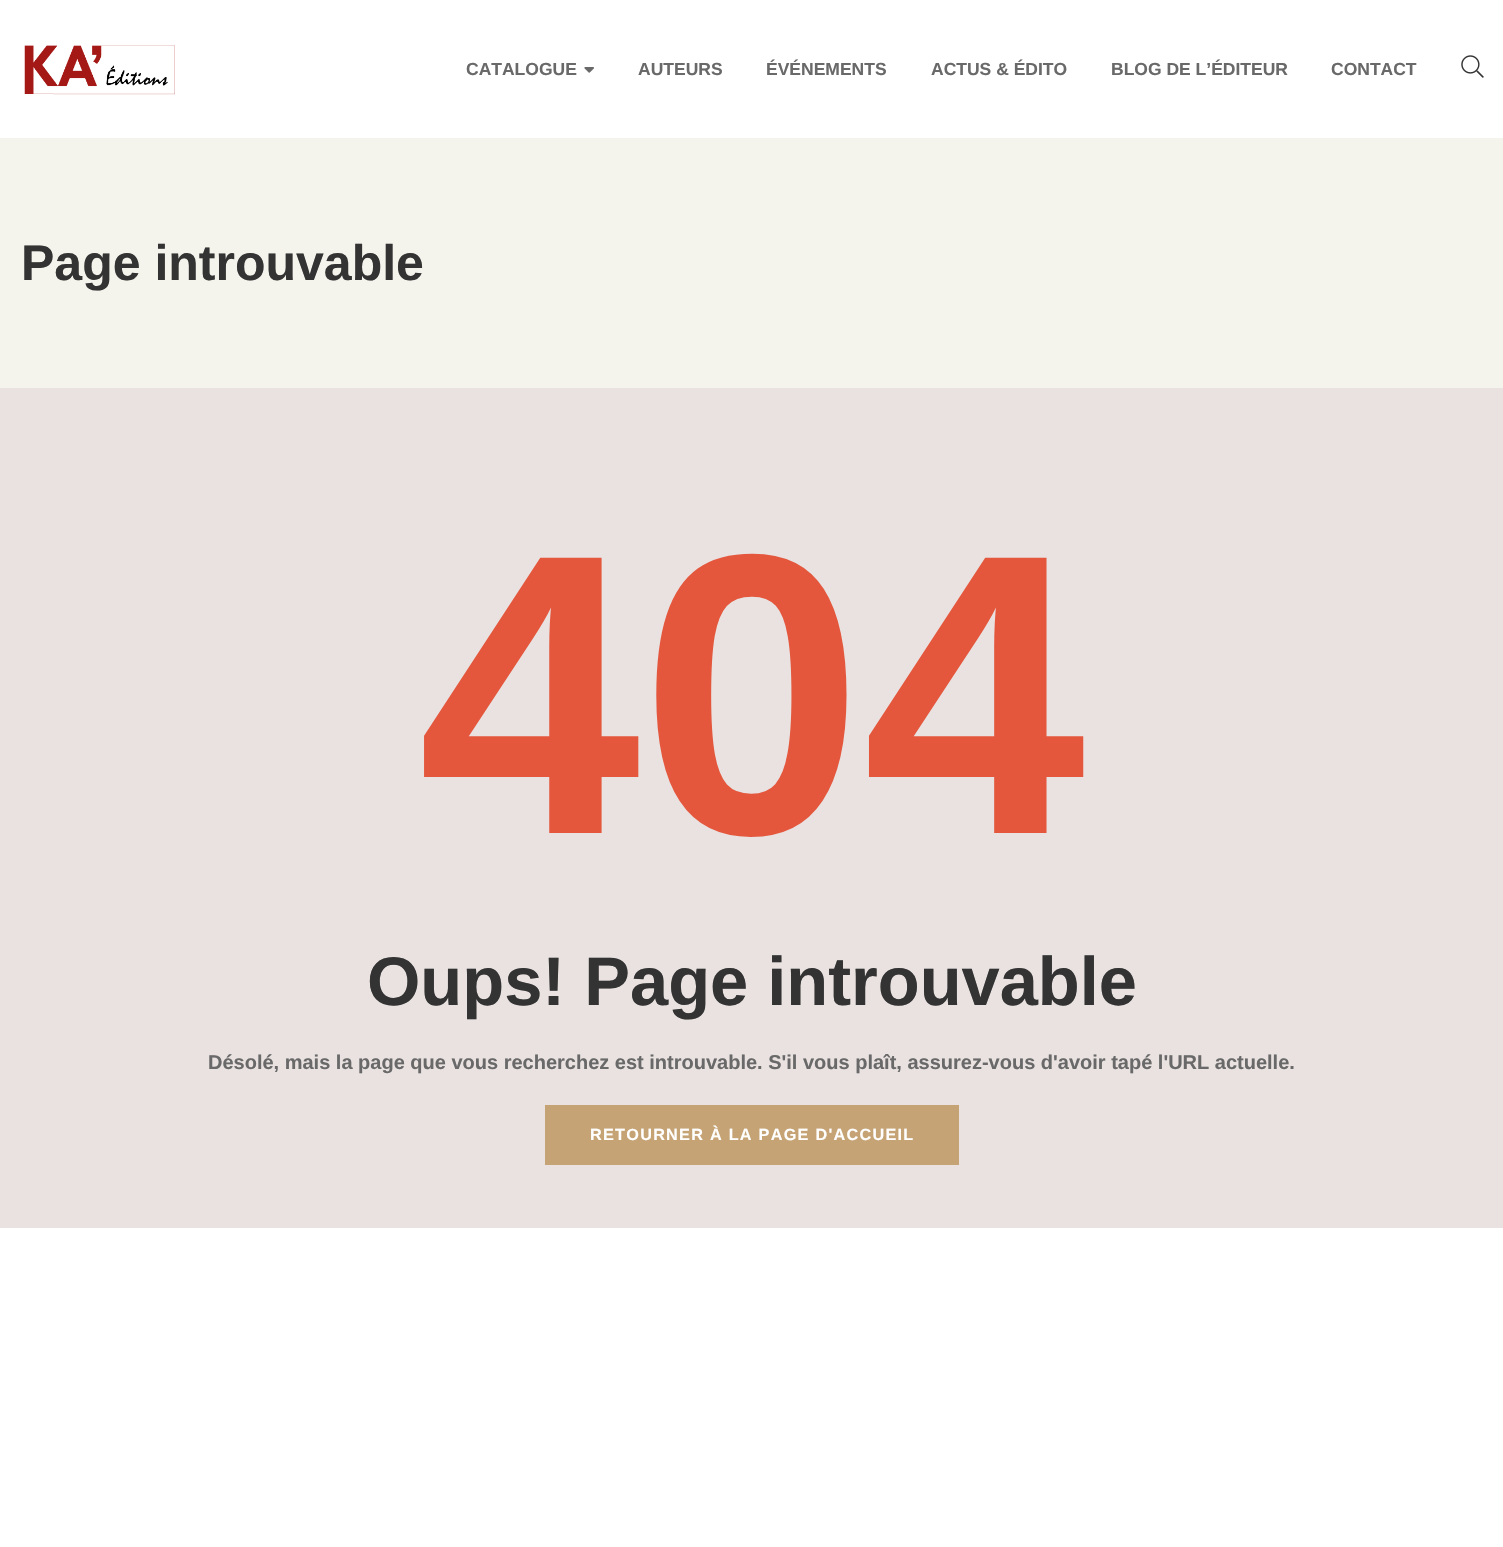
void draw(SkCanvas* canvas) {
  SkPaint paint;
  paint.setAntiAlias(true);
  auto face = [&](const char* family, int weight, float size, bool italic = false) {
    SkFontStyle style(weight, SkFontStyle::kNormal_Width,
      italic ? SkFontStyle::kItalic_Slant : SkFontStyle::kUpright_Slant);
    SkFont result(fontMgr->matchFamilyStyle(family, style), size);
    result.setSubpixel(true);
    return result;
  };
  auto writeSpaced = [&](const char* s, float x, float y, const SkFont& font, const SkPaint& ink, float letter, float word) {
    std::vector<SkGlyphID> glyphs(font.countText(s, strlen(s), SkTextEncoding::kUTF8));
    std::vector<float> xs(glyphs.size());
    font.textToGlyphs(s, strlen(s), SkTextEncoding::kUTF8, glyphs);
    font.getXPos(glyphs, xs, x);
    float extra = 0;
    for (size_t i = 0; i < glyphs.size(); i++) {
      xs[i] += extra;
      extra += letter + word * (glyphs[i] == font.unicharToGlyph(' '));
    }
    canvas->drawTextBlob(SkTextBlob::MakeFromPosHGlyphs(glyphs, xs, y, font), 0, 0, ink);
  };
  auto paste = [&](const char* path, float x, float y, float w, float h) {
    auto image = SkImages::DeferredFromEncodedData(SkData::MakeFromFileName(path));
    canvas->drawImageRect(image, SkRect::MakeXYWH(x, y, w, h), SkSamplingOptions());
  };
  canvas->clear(0xffffffff);
  paint.setColor(0xffe9e2e1);
  canvas->drawRect(SkRect::MakeXYWH(0, 388, 1503, 840), paint);
  paste("img/1.png", 24, 45, 151, 50);
  paste("img/2.png", 584, 67, 10, 6);
  paste("img/3.png", 1461, 55, 23, 23);
  paint.setColor(0xfff4f3ec);
  canvas->drawRect(SkRect::MakeXYWH(0, 138, 1503, 250), paint);
  paint.setColor(0xffc5a374);
  canvas->drawRect(SkRect::MakeXYWH(545, 1105, 414, 60), paint);
  auto f0 = face("Liberation Sans", 700, 17.5f);
  paint.setColor(0xff696969);
  {
    const struct { const char* s; float x, y; } items[] = {
      {"CATALOGUE", 466, 75},
      {"AUTEURS", 638, 75},
      {"ÉVÉNEMENTS", 766, 75},
      {"ACTUS & ÉDITO", 931, 75},
      {"BLOG DE L’ÉDITEUR", 1111, 75},
      {"CONTACT", 1331, 75},
    };
    for (auto [s, x, y] : items) {
      canvas->drawString(s, x, y, f0, paint);
    }
  }
  auto f1 = face("Liberation Sans", 700, 50);
  paint.setColor(0xff333333);
  canvas->drawString("Page introuvable", 21, 280, f1, paint);
  auto f2 = face("Liberation Sans", 700, 400);
  paint.setColor(0xffe4573d);
  canvas->drawString("404", 418, 833, f2, paint);
  auto f3 = face("Liberation Sans", 700, 68.6f);
  paint.setColor(0xff333333);
  canvas->drawString("Oups! Page introuvable", 367, 1005, f3, paint);
  auto f4 = face("Liberation Sans", 700, 20);
  paint.setColor(0xff696969);
  canvas->drawString("Désolé, mais la page que vous recherchez est introuvable. S'il vous plaît, assurez-vous d'avoir tapé l'URL actuelle.", 208, 1069, f4, paint);
  auto f5 = face("Liberation Sans", 700, 16.25f);
  paint.setColor(0xffffffff);
  writeSpaced("RETOURNER À LA PAGE D'ACCUEIL", 590, 1140, f5, paint, 1.25f, 0);
}
